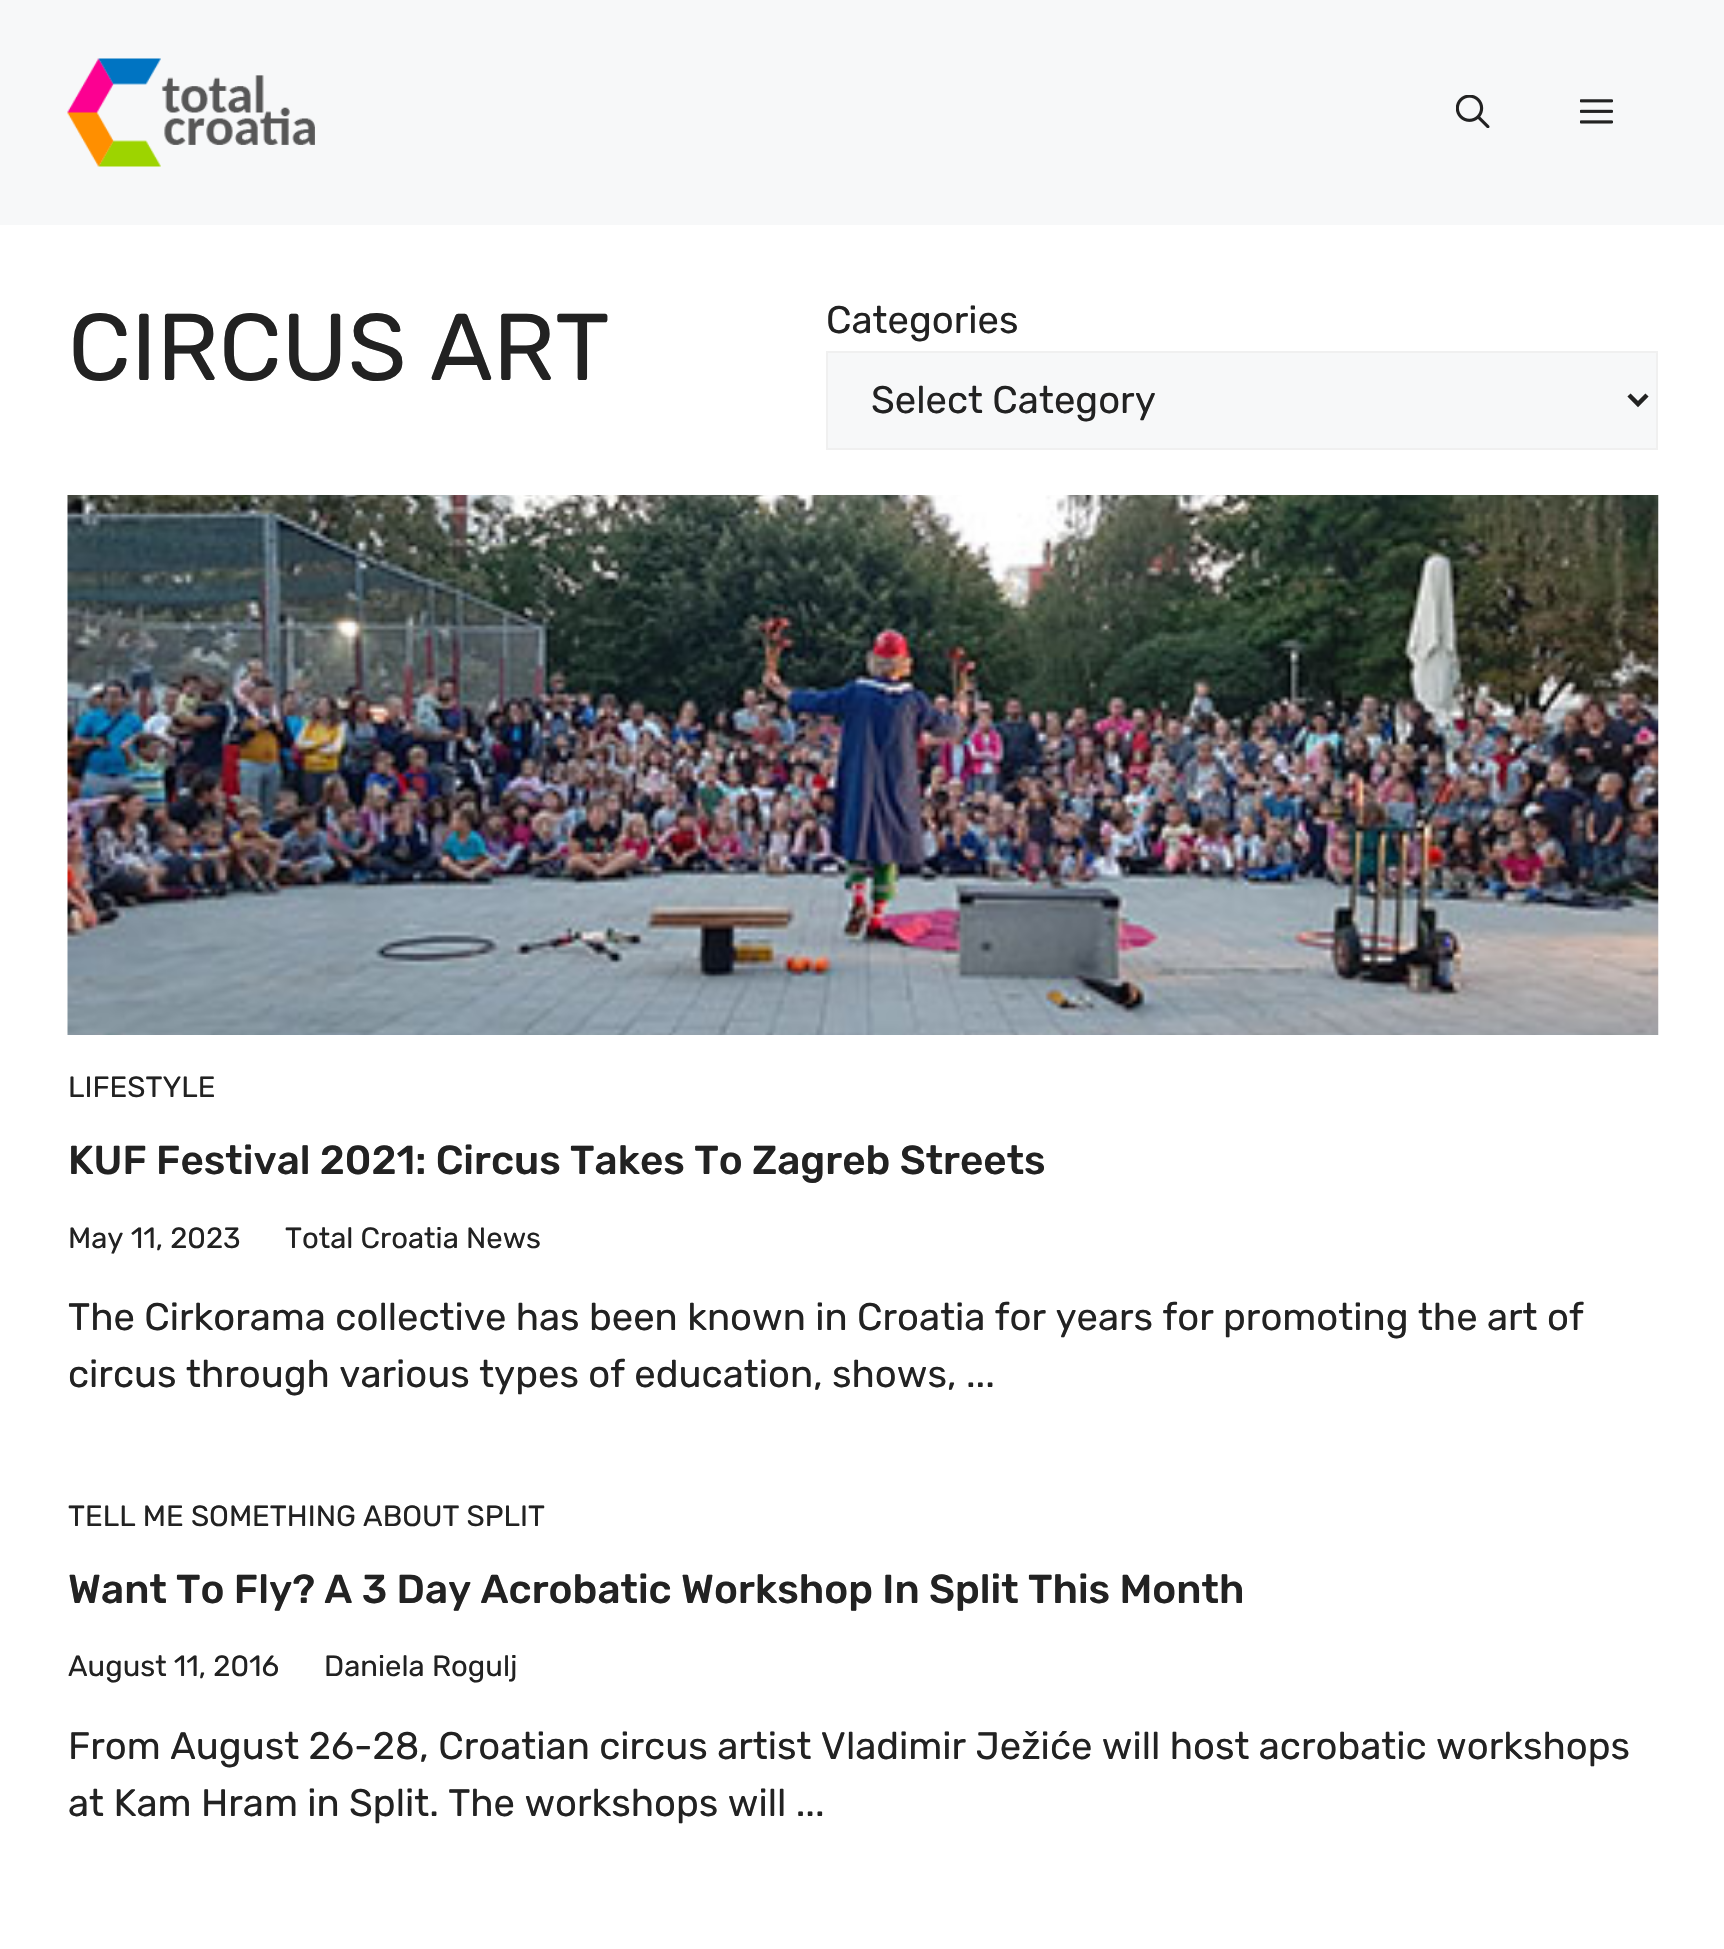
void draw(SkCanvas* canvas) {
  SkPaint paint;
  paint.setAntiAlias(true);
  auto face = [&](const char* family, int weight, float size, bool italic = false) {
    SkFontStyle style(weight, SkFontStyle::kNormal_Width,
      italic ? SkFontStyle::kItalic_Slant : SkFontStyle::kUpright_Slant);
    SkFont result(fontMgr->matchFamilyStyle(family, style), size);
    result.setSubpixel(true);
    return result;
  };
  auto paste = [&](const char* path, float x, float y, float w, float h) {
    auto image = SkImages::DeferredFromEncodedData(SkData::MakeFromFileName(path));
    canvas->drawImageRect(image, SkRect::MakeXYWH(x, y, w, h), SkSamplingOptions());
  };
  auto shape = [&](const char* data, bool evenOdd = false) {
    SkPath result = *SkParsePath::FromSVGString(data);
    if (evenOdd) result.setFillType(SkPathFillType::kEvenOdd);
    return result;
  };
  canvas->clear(0xffffffff);
  paint.setColor(0xfff7f8f9);
  canvas->drawRect(SkRect::MakeXYWH(0, 0, 1724, 225), paint);
  paste("img/1.png", 67, 58, 248, 109);
  paste("img/2.png", 1456, 95, 34, 33);
  paste("img/3.png", 1580, 99, 33, 25);
  canvas->drawRect(SkRect::MakeXYWH(827, 352, 830, 97), paint);
  paint.setStroke(true);
  paint.setStrokeWidth(2);
  paint.setColor(0xfff0f0f0);
  canvas->drawRect(SkRect::MakeXYWH(827, 352, 830, 97), paint);
  paint.setStrokeWidth(4.5f);
  paint.setColor(0xff222222);
  canvas->drawPath(shape("M1629 395L1638 404L1647 395"), paint);
  paste("img/4.png", 67, 495, 1592, 540);
  auto f0 = face("Rubik", 400, 94.5f);
  paint.setStroke(false);
  canvas->drawString("CIRCUS ART", 68, 380, f0, paint);
  auto f1 = face("Rubik", 400, 38.25f);
  canvas->drawString("Categories", 826, 333, f1, paint);
  canvas->drawString("Select Category", 871, 413, f1, paint);
  auto f2 = face("Rubik", 400, 29.25f);
  canvas->drawString("LIFESTYLE", 68, 1097, f2, paint);
  auto f3 = face("Rubik", 500, 40.5f);
  canvas->drawString("KUF Festival 2021: Circus Takes To Zagreb Streets", 68, 1174, f3, paint);
  canvas->drawString("May 11, 2023", 68, 1248, f2, paint);
  canvas->drawString("Total Croatia News", 285, 1248, f2, paint);
  canvas->drawString("The Cirkorama collective has been known in Croatia for years for promoting the art of", 68, 1330, f1, paint);
  canvas->drawString("circus through various types of education, shows, ...", 68, 1387, f1, paint);
  canvas->drawString("TELL ME SOMETHING ABOUT SPLIT", 68, 1526, f2, paint);
  canvas->drawString("Want To Fly? A 3 Day Acrobatic Workshop In Split This Month", 68, 1603, f3, paint);
  canvas->drawString("August 11, 2016", 68, 1676, f2, paint);
  canvas->drawString("Daniela Rogulj", 324, 1676, f2, paint);
  canvas->drawString("From August 26-28, Croatian circus artist Vladimir Ježiće will host acrobatic workshops", 68, 1759, f1, paint);
  canvas->drawString("at Kam Hram in Split. The workshops will ...", 68, 1816, f1, paint);
}
